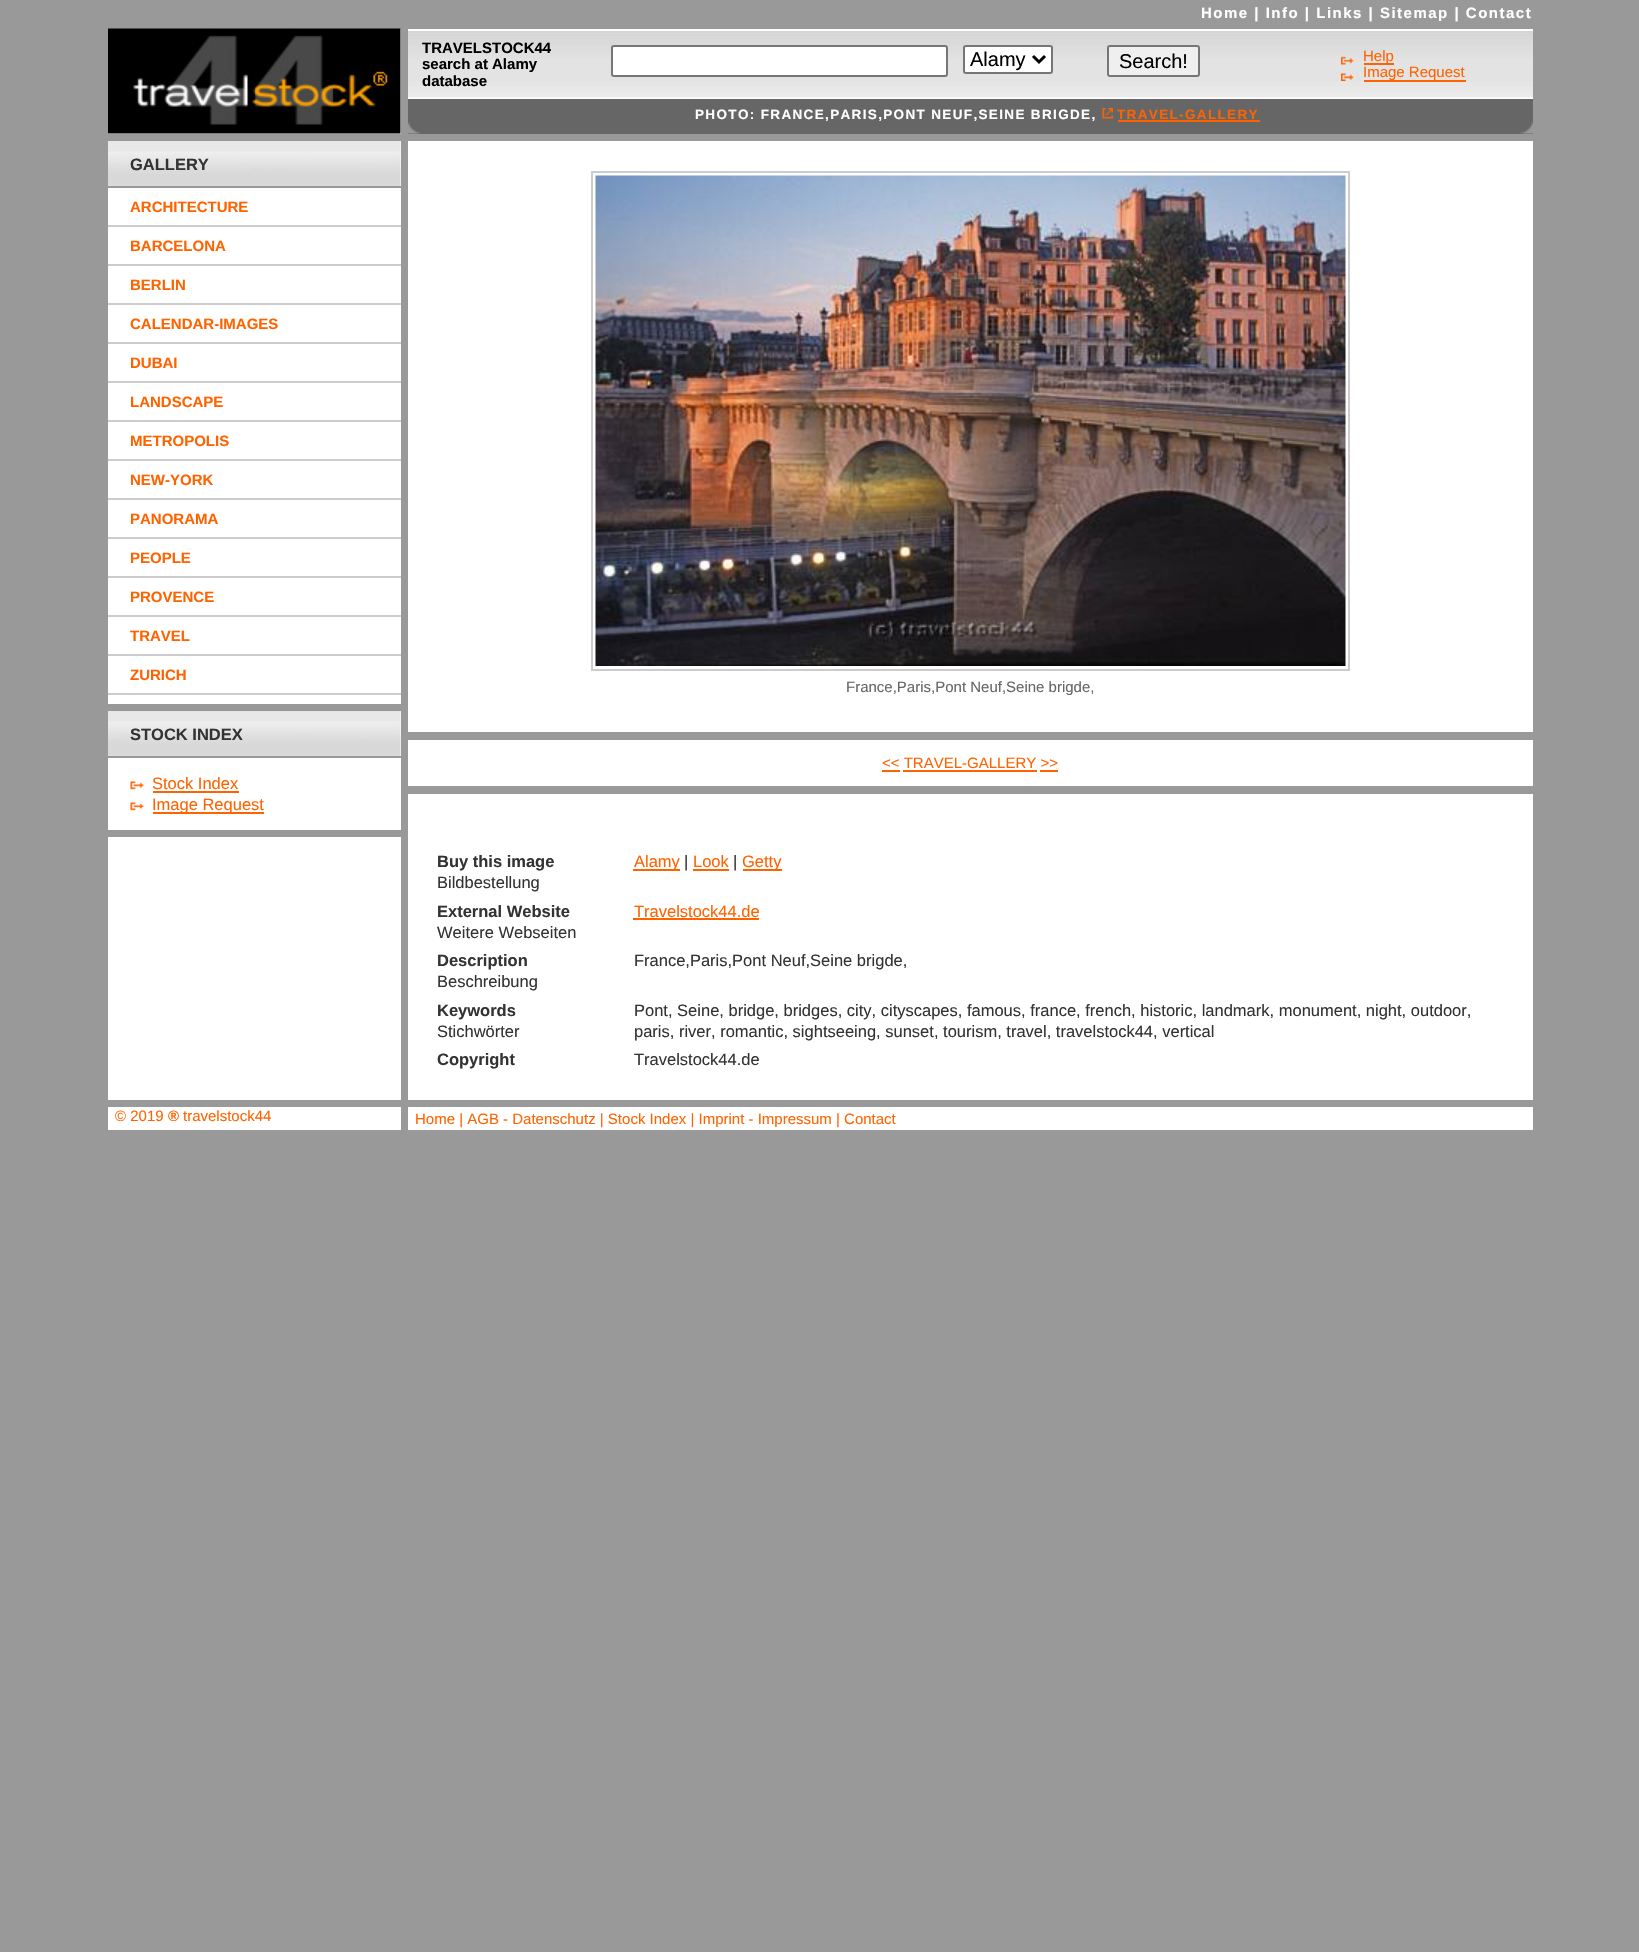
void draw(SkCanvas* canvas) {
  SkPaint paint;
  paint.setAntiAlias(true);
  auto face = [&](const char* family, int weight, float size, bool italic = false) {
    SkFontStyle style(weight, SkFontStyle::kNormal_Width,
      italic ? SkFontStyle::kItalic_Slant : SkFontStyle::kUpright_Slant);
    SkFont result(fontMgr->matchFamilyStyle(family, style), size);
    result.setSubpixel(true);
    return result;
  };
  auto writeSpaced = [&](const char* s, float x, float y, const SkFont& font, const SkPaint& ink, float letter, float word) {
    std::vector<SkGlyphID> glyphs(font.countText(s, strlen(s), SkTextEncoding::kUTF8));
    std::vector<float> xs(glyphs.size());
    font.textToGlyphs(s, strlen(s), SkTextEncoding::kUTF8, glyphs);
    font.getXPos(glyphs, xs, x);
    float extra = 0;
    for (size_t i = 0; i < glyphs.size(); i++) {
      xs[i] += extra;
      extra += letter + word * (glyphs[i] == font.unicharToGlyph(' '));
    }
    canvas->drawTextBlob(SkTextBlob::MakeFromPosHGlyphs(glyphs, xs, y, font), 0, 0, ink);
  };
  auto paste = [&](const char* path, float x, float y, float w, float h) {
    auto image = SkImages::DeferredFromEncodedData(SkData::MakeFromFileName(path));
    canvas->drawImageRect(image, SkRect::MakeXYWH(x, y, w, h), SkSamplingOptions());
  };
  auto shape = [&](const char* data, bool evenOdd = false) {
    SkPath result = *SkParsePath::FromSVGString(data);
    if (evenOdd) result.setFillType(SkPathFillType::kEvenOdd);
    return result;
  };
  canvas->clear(0xff999999);
  paint.setColor(0xffffffff);
  canvas->drawRect(SkRect::MakeXYWH(108, 29, 293, 1071), paint);
  paint.setColor(0xff999999);
  canvas->drawRect(SkRect::MakeXYWH(108, 134, 293, 7), paint);
  paste("img/1.png", 108, 28, 293, 106);
  canvas->drawRect(SkRect::MakeXYWH(108, 704, 293, 7), paint);
  paste("img/2.png", 108, 141, 293, 45);
  {
    const struct { float x, y, w, h; SkColor color; } items[] = {
      {108, 186, 293, 2, 0xff999999},
      {108, 225, 293, 2, 0xffcccccc},
      {108, 264, 293, 2, 0xffcccccc},
      {108, 303, 293, 2, 0xffcccccc},
      {108, 342, 293, 2, 0xffcccccc},
      {108, 381, 293, 2, 0xffcccccc},
      {108, 420, 293, 2, 0xffcccccc},
      {108, 459, 293, 2, 0xffcccccc},
      {108, 498, 293, 2, 0xffcccccc},
      {108, 537, 293, 2, 0xffcccccc},
      {108, 576, 293, 2, 0xffcccccc},
      {108, 615, 293, 2, 0xffcccccc},
      {108, 654, 293, 2, 0xffcccccc},
      {108, 693, 293, 2, 0xffcccccc},
      {108, 830, 293, 7, 0xff999999},
    };
    for (auto [x, y, w, h, color] : items) {
      paint.setColor(color);
      canvas->drawRect(SkRect::MakeXYWH(x, y, w, h), paint);
    }
  }
  paste("img/3.png", 108, 711, 293, 45);
  canvas->drawRect(SkRect::MakeXYWH(108, 756, 293, 2), paint);
  paste("img/4.png", 130, 781, 14, 9);
  paint.setColor(0xffff6300);
  canvas->drawRect(SkRect::MakeXYWH(153, 791, 86, 2), paint);
  paste("img/4.png", 130, 802, 14, 9);
  canvas->drawRect(SkRect::MakeXYWH(153, 812, 111, 2), paint);
  paint.setColor(0xffffffff);
  canvas->drawRect(SkRect::MakeXYWH(408, 97, 1125, 1003), paint);
  paste("img/5.png", 408, 31, 1125, 67);
  canvas->drawRect(SkRect::MakeXYWH(408, 29, 1125, 2), paint);
  canvas->drawRoundRect(SkRect::MakeXYWH(612, 46, 335, 30), 2, 2, paint);
  paint.setStroke(true);
  paint.setStrokeWidth(2);
  paint.setColor(0xff767676);
  canvas->drawRoundRect(SkRect::MakeXYWH(612, 46, 335, 30), 2, 2, paint);
  paint.setStroke(false);
  paint.setColor(0xffffffff);
  canvas->drawRoundRect(SkRect::MakeXYWH(964, 46, 88, 27), 2, 2, paint);
  paint.setStroke(true);
  paint.setColor(0xff767676);
  canvas->drawRoundRect(SkRect::MakeXYWH(964, 46, 88, 27), 2, 2, paint);
  paint.setStrokeWidth(3);
  paint.setColor(0xff000000);
  canvas->drawPath(shape("M1033 56L1039 62L1045 56"), paint);
  paint.setStroke(false);
  paint.setColor(0xffefefef);
  canvas->drawRoundRect(SkRect::MakeXYWH(1108, 46, 91, 30), 2, 2, paint);
  paint.setStroke(true);
  paint.setStrokeWidth(2);
  paint.setColor(0xff767676);
  canvas->drawRoundRect(SkRect::MakeXYWH(1108, 46, 91, 30), 2, 2, paint);
  paste("img/6.png", 1341, 56, 13, 9);
  paint.setStroke(false);
  paint.setColor(0xffff6300);
  canvas->drawRect(SkRect::MakeXYWH(1364, 63, 30, 2), paint);
  paste("img/7.png", 1341, 73, 13, 8);
  canvas->drawRect(SkRect::MakeXYWH(1364, 80, 102, 2), paint);
  paint.setColor(0xff666666);
  canvas->drawRect(SkRect::MakeXYWH(408, 99, 1125, 35), paint);
  paste("img/8.png", 1102, 108, 11, 11);
  paint.setColor(0xffff6300);
  canvas->drawRect(SkRect::MakeXYWH(1118, 120, 142, 2), paint);
  paste("img/9.png", 408, 121, 13, 13);
  paste("img/10.png", 1520, 121, 13, 13);
  paint.setColor(0xff999999);
  canvas->drawRect(SkRect::MakeXYWH(408, 134, 1125, 7), paint);
  canvas->drawRect(SkRect::MakeXYWH(408, 732, 1125, 8), paint);
  paint.setStroke(true);
  paint.setColor(0xffcccccc);
  canvas->drawRect(SkRect::MakeXYWH(592, 172, 757, 498), paint);
  paste("img/11.png", 595, 175, 751, 491);
  paint.setStroke(false);
  {
    const struct { float x, y, w, h; SkColor color; } items[] = {
      {408, 786, 1125, 8, 0xff999999},
      {882, 770, 18, 2, 0xffff6300},
      {903, 770, 134, 2, 0xffff6300},
      {1040, 770, 18, 2, 0xffff6300},
      {633, 869, 47, 2, 0xffff6300},
      {693, 869, 36, 2, 0xffff6300},
      {743, 869, 39, 2, 0xffff6300},
      {633, 918, 126, 2, 0xffff6300},
      {108, 1107, 293, 23, 0xffffffff},
      {408, 1107, 1125, 23, 0xffffffff},
    };
    for (auto [x, y, w, h, color] : items) {
      paint.setColor(color);
      canvas->drawRect(SkRect::MakeXYWH(x, y, w, h), paint);
    }
  }
  auto f0 = face("Liberation Sans", 700, 15);
  writeSpaced("Home | Info | Links | Sitemap | Contact", 1201, 18, f0, paint, 1.5f, 0);
  auto f1 = face("Liberation Sans", 700, 16.5f);
  paint.setColor(0xff333333);
  canvas->drawString("GALLERY", 130, 170, f1, paint);
  paint.setColor(0xffff6300);
  {
    const struct { const char* s; float x, y; } items[] = {
      {"ARCHITECTURE", 130, 212},
      {"BARCELONA", 130, 251},
      {"BERLIN", 130, 290},
      {"CALENDAR-IMAGES", 130, 329},
      {"DUBAI", 130, 368},
      {"LANDSCAPE", 130, 407},
      {"METROPOLIS", 130, 446},
      {"NEW-YORK", 130, 485},
      {"PANORAMA", 130, 524},
      {"PEOPLE", 130, 563},
      {"PROVENCE", 130, 602},
      {"TRAVEL", 130, 641},
      {"ZURICH", 130, 680},
    };
    for (auto [s, x, y] : items) {
      canvas->drawString(s, x, y, f0, paint);
    }
  }
  paint.setColor(0xff333333);
  canvas->drawString("STOCK INDEX", 130, 740, f1, paint);
  auto f2 = face("Liberation Sans", 400, 16.5f);
  paint.setColor(0xffff6300);
  canvas->drawString("Stock Index", 152, 789, f2, paint);
  canvas->drawString("Image Request", 152, 810, f2, paint);
  paint.setColor(0xff000000);
  {
    const struct { const char* s; float x, y; } items[] = {
      {"TRAVELSTOCK44", 422, 53},
      {"search at Alamy", 422, 69},
      {"database", 422, 86},
    };
    for (auto [s, x, y] : items) {
      canvas->drawString(s, x, y, f0, paint);
    }
  }
  auto f3 = face("Liberation Sans", 400, 20);
  canvas->drawString("Alamy", 970, 66, f3, paint);
  canvas->drawString("Search!", 1119, 68, f3, paint);
  auto f4 = face("Liberation Sans", 400, 15);
  paint.setColor(0xffff6300);
  canvas->drawString("Help", 1363, 61, f4, paint);
  canvas->drawString("Image Request", 1363, 77, f4, paint);
  auto f5 = face("Liberation Sans", 700, 13.5f);
  paint.setColor(0xffffffff);
  writeSpaced("PHOTO: FRANCE,PARIS,PONT NEUF,SEINE BRIGDE,", 695, 119, f5, paint, 1.35f, 0);
  paint.setColor(0xffff6300);
  writeSpaced("TRAVEL-GALLERY", 1117, 119, f5, paint, 1.35f, 0);
  paint.setColor(0xff666666);
  canvas->drawString("France,Paris,Pont Neuf,Seine brigde,", 846, 692, f4, paint);
  paint.setColor(0xffff6300);
  canvas->drawString("<< TRAVEL-GALLERY >>", 882, 768, f4, paint);
  paint.setColor(0xff333333);
  canvas->drawString("Buy this image", 437, 867, f1, paint);
  canvas->drawString("Bildbestellung", 437, 888, f2, paint);
  paint.setColor(0xffff6300);
  canvas->drawString("Alamy", 634, 867, f2, paint);
  paint.setColor(0xff333333);
  canvas->drawString("|", 684, 867, f2, paint);
  paint.setColor(0xffff6300);
  canvas->drawString("Look", 693, 867, f2, paint);
  paint.setColor(0xff333333);
  canvas->drawString("|", 733, 867, f2, paint);
  paint.setColor(0xffff6300);
  canvas->drawString("Getty", 742, 867, f2, paint);
  paint.setColor(0xff333333);
  canvas->drawString("External Website", 437, 917, f1, paint);
  canvas->drawString("Weitere Webseiten", 437, 938, f2, paint);
  paint.setColor(0xffff6300);
  canvas->drawString("Travelstock44.de", 634, 917, f2, paint);
  paint.setColor(0xff333333);
  canvas->drawString("Description", 437, 966, f1, paint);
  canvas->drawString("Beschreibung", 437, 987, f2, paint);
  canvas->drawString("France,Paris,Pont Neuf,Seine brigde,", 634, 966, f2, paint);
  canvas->drawString("Keywords", 437, 1016, f1, paint);
  {
    const struct { const char* s; float x, y; } items[] = {
      {"Stichwörter", 437, 1037},
      {"Pont, Seine, bridge, bridges, city, cityscapes, famous, france, french, historic, landmark, monument, night, outdoor,", 634, 1016},
      {"paris, river, romantic, sightseeing, sunset, tourism, travel, travelstock44, vertical", 634, 1037},
    };
    for (auto [s, x, y] : items) {
      canvas->drawString(s, x, y, f2, paint);
    }
  }
  canvas->drawString("Copyright", 437, 1065, f1, paint);
  canvas->drawString("Travelstock44.de", 634, 1065, f2, paint);
  paint.setColor(0xffff6300);
  canvas->drawString("© 2019", 115, 1121, f4, paint);
  canvas->drawString("®", 168, 1121, f0, paint);
  canvas->drawString("travelstock44", 183, 1121, f4, paint);
  canvas->drawString("Home | AGB - Datenschutz | Stock Index | Imprint - Impressum | Contact", 415, 1124, f4, paint);
}
